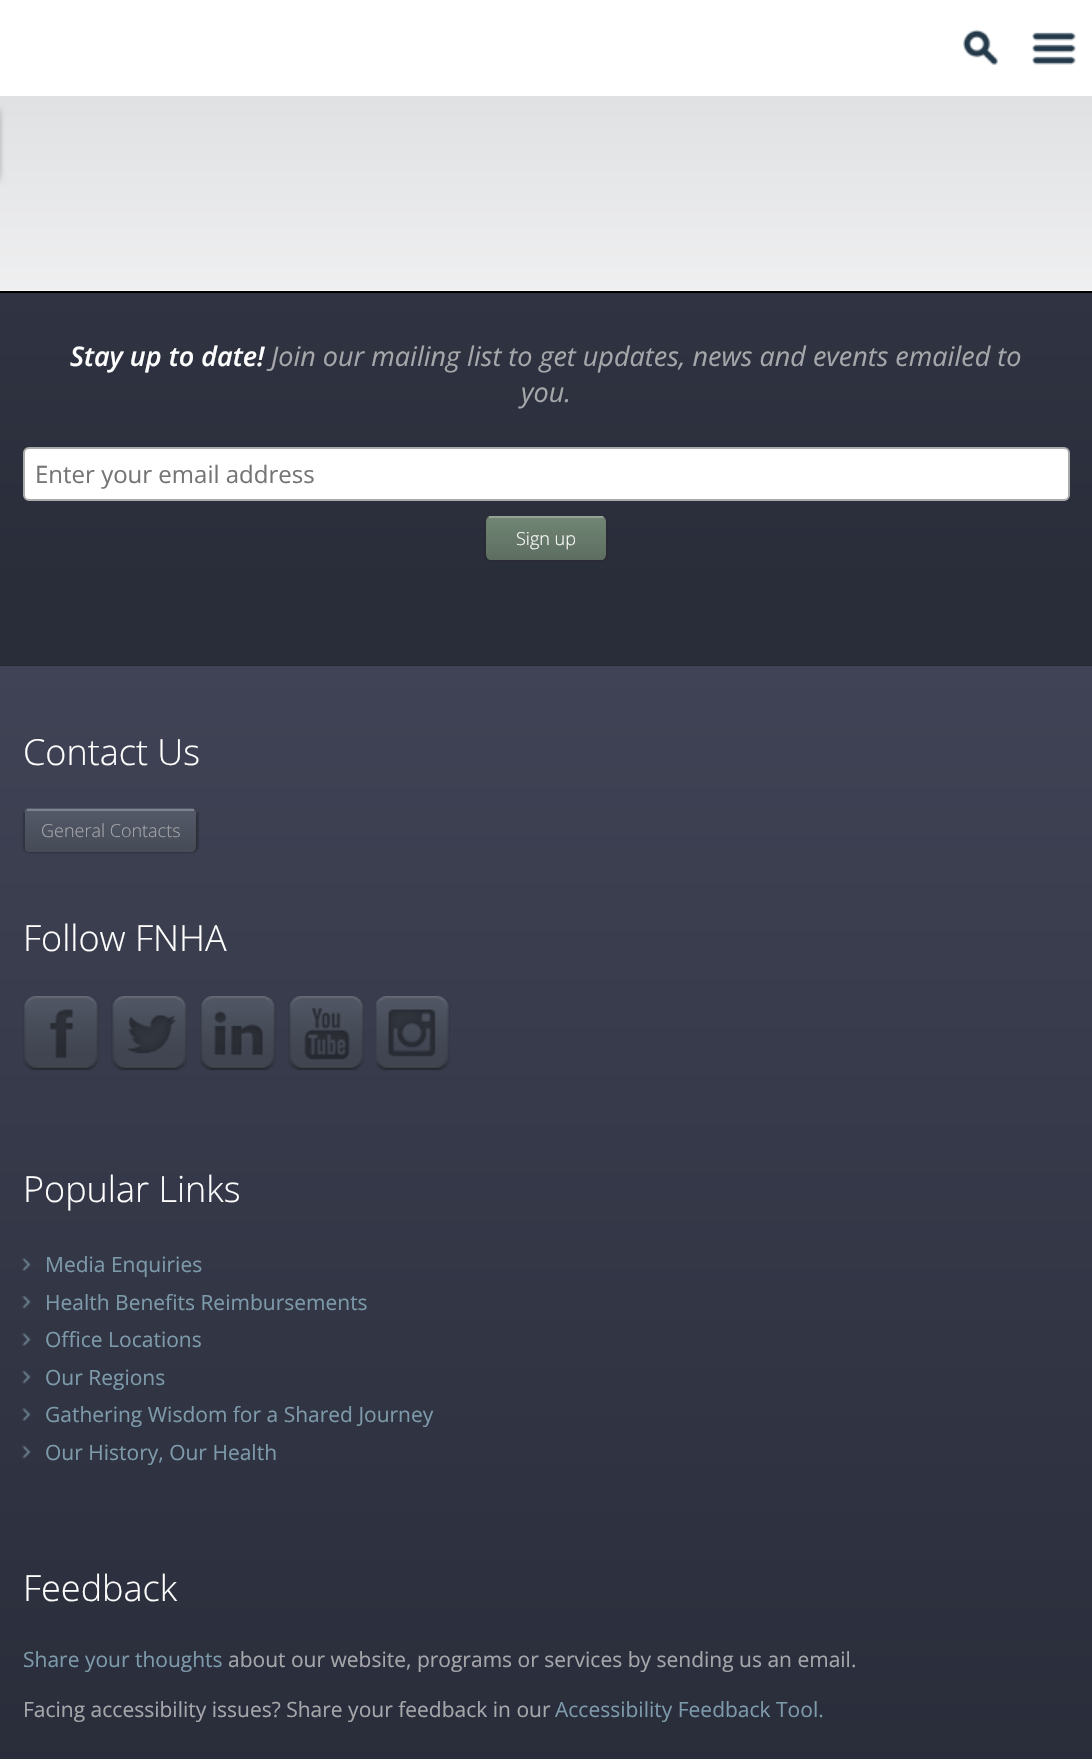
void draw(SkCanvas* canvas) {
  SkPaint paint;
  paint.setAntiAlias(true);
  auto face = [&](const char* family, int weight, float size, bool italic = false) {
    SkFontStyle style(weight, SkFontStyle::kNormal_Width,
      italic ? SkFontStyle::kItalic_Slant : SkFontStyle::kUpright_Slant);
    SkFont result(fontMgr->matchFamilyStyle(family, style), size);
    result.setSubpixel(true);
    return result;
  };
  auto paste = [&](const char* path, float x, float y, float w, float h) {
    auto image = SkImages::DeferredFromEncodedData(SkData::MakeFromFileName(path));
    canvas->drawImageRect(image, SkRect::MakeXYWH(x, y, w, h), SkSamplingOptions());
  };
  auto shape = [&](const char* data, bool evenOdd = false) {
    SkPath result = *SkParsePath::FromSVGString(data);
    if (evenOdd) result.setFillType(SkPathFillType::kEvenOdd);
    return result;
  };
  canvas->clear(0xffffffff);
  paste("img/1.png", 963, 29, 35, 36);
  paste("img/2.png", 1032, 32, 44, 33);
  {
    const SkColor colors[] = {0xffe0e1e3, 0xfffafafa};
    const float stops[] = {0, 1};
    const SkPoint ends[] = {{546, 96}, {546, 440}};
    paint.setShader(SkGradientShader::MakeLinear(ends, colors, stops, 2, SkTileMode::kClamp));
    paint.setAlpha(255);
  }
  canvas->drawRect(SkRect::MakeXYWH(0, 96, 1092, 194), paint);
  paint.setShader(nullptr);
  paint.setColor(0xbf000000);
  paint.setMaskFilter(SkMaskFilter::MakeBlur(kNormal_SkBlurStyle, 4));
  canvas->drawRect(SkRect::MakeXYWH(-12, 110, 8, 69), paint);
  paint.setMaskFilter(nullptr);
  paint.setColor(0xfff8f8f9);
  canvas->drawRect(SkRect::MakeXYWH(0, 290, 1092, 1), paint);
  {
    const SkColor colors[] = {0xff303341, 0xff292c39};
    const float stops[] = {0, 0.8f};
    const SkPoint ends[] = {{546, 292}, {546, 665}};
    paint.setShader(SkGradientShader::MakeLinear(ends, colors, stops, 2, SkTileMode::kClamp));
    paint.setAlpha(255);
  }
  canvas->drawRect(SkRect::MakeXYWH(0, 293, 1092, 372), paint);
  paint.setShader(nullptr);
  paint.setColor(0xff000000);
  canvas->drawRect(SkRect::MakeXYWH(0, 291, 1092, 2), paint);
  paint.setColor(0xff252833);
  canvas->drawRect(SkRect::MakeXYWH(0, 665, 1092, 1), paint);
  paint.setColor(0xffffffff);
  canvas->drawRoundRect(SkRect::MakeXYWH(24, 448, 1045, 52), 5, 5, paint);
  paint.setStroke(true);
  paint.setStrokeWidth(2);
  paint.setColor(0xffababab);
  canvas->drawRoundRect(SkRect::MakeXYWH(24, 448, 1045, 52), 5, 5, paint);
  paint.setStroke(false);
  paint.setColor(0xff222222);
  paint.setMaskFilter(SkMaskFilter::MakeBlur(kNormal_SkBlurStyle, 1.5f));
  canvas->drawRoundRect(SkRect::MakeXYWH(486, 519, 120, 41), 5, 5, paint);
  paint.setMaskFilter(nullptr);
  {
    const SkColor colors[] = {0xff718674, 0xff5d6e61};
    const float stops[] = {0, 1};
    const SkPoint ends[] = {{546, 516}, {546, 560}};
    paint.setShader(SkGradientShader::MakeLinear(ends, colors, stops, 2, SkTileMode::kClamp));
    paint.setAlpha(255);
  }
  canvas->drawPath(shape("M490 516H602C604 516 606 519 606 522V554C606 557 604 560 602 560H490C488 560 486 557 486 554V522C486 519 488 516 490 516Z"), paint);
  paint.setShader(nullptr);
  paint.setColor(0xff94a396);
  canvas->drawRect(SkRect::MakeXYWH(489, 516, 114, 2), paint);
  {
    const SkColor colors[] = {0xff404355, 0xff292c39};
    const float stops[] = {0, 0.8f};
    const SkPoint ends[] = {{546, 666}, {546, 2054}};
    paint.setShader(SkGradientShader::MakeLinear(ends, colors, stops, 2, SkTileMode::kClamp));
    paint.setAlpha(255);
  }
  canvas->drawRect(SkRect::MakeXYWH(0, 666, 1092, 1093), paint);
  paint.setShader(nullptr);
  paint.setColor(0xff222222);
  paint.setMaskFilter(SkMaskFilter::MakeBlur(kNormal_SkBlurStyle, 1.5f));
  canvas->drawRoundRect(SkRect::MakeXYWH(24, 812, 173, 40), 5, 5, paint);
  paint.setMaskFilter(nullptr);
  {
    const SkColor colors[] = {0xff545a68, 0xff454a56};
    const float stops[] = {0, 1};
    const SkPoint ends[] = {{110, 809}, {110, 852}};
    paint.setShader(SkGradientShader::MakeLinear(ends, colors, stops, 2, SkTileMode::kClamp));
    paint.setAlpha(255);
  }
  canvas->drawPath(shape("M28 808H192C194 808 196 811 196 814V846C196 849 194 852 192 852H28C26 852 24 849 24 846V814C24 811 26 808 28 808Z"), paint);
  paint.setShader(nullptr);
  {
    const struct { float x, y, w, h; SkColor color; } items[] = {
      {197, 812, 2, 37, 0xff313443},
      {23, 812, 2, 37, 0xff313443},
      {27, 809, 167, 2, 0xff7e828d},
    };
    for (auto [x, y, w, h, color] : items) {
      paint.setColor(color);
      canvas->drawRect(SkRect::MakeXYWH(x, y, w, h), paint);
    }
  }
  paste("img/3.png", 23, 996, 76, 75);
  paste("img/4.png", 111, 996, 76, 75);
  paste("img/5.png", 200, 996, 76, 75);
  paste("img/6.png", 288, 996, 76, 75);
  paste("img/7.png", 376, 996, 74, 75);
  paste("img/8.png", 22, 1258, 9, 13);
  paste("img/9.png", 22, 1295, 9, 14);
  paste("img/10.png", 22, 1333, 9, 13);
  paste("img/11.png", 22, 1370, 9, 14);
  paste("img/12.png", 22, 1408, 9, 13);
  paste("img/13.png", 22, 1445, 9, 14);
  auto f0 = face("Open Sans", 600, 27, true);
  paint.setColor(0xffffffff);
  canvas->drawString("Stay up to date!", 70, 366, f0, paint);
  auto f1 = face("Open Sans", 400, 27, true);
  paint.setColor(0xffa6a7ab);
  canvas->drawString("Join our mailing list to get updates, news and events emailed to", 271, 366, f1, paint);
  canvas->drawString("you.", 521, 402, f1, paint);
  auto f2 = face("Open Sans", 400, 24);
  paint.setColor(0xff757575);
  canvas->drawString("Enter your email address", 35, 483, f2, paint);
  auto f3 = face("Open Sans", 300, 18);
  paint.setColor(0xffffffff);
  canvas->drawString("Sign up", 516, 545, f3, paint);
  auto f4 = face("Open Sans", 300, 36);
  canvas->drawString("Contact Us", 23, 765, f4, paint);
  paint.setColor(0xffa6a7ab);
  canvas->drawString("General Contacts", 41, 837, f3, paint);
  paint.setColor(0xffffffff);
  canvas->drawString("Follow FNHA", 23, 951, f4, paint);
  canvas->drawString("Popular Links", 23, 1202, f4, paint);
  auto f5 = face("Open Sans", 400, 21);
  paint.setColor(0xff7d9aaa);
  {
    const struct { const char* s; float x, y; } items[] = {
      {"Media Enquiries", 45, 1272},
      {"Health Benefits Reimbursements", 45, 1310},
      {"Office Locations", 45, 1347},
      {"Our Regions", 45, 1385},
      {"Gathering Wisdom for a Shared Journey", 45, 1422},
      {"Our History, Our Health", 45, 1460},
    };
    for (auto [s, x, y] : items) {
      canvas->drawString(s, x, y, f5, paint);
    }
  }
  paint.setColor(0xffffffff);
  canvas->drawString("Feedback", 23, 1601, f4, paint);
  paint.setColor(0xff7d9aaa);
  canvas->drawString("Share your thoughts", 23, 1667, f5, paint);
  paint.setColor(0xffa6a7ab);
  canvas->drawString("about our website, programs or services by sending us an email.", 228, 1667, f5, paint);
  canvas->drawString("Facing accessibility issues? Share your feedback in our", 23, 1717, f5, paint);
  paint.setColor(0xff7d9aaa);
  canvas->drawString("Accessibility Feedback Tool.", 555, 1717, f5, paint);
}
